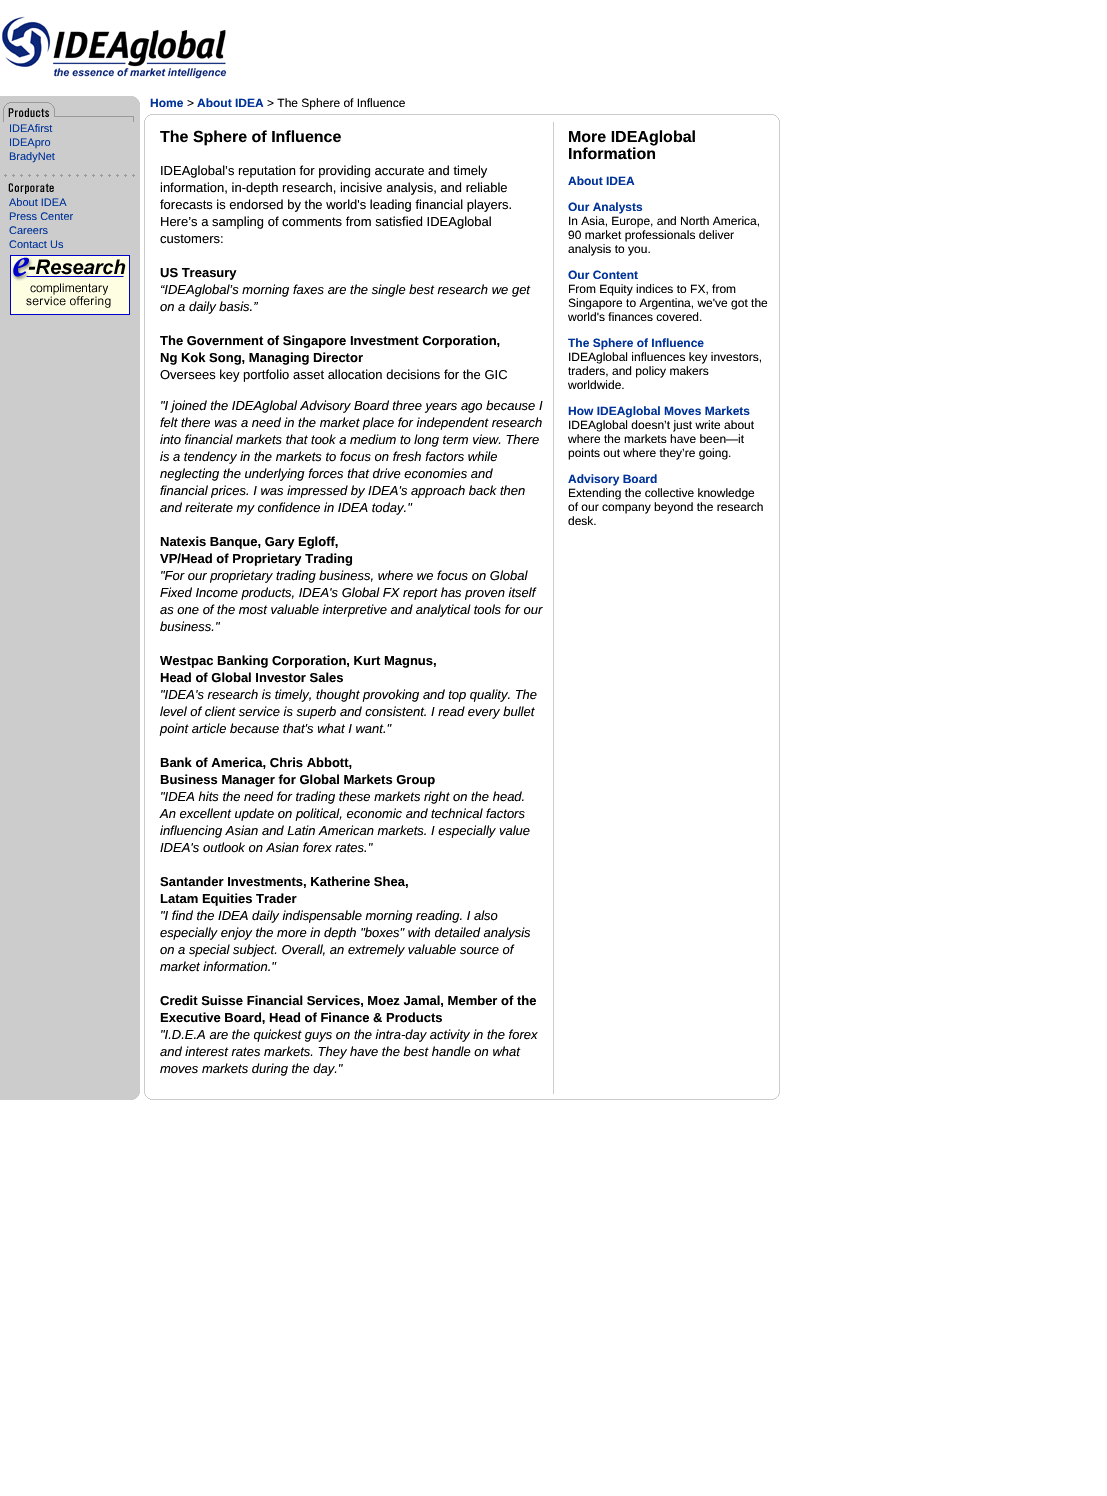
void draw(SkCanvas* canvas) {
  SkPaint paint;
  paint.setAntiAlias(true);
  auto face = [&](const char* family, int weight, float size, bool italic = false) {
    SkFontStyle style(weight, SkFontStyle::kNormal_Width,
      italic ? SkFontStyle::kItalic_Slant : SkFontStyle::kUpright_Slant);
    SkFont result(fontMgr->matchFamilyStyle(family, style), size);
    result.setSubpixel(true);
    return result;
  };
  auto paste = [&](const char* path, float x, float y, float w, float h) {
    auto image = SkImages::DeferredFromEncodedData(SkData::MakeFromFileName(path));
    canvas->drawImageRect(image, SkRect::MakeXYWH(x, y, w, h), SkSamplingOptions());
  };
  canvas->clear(0xffffffff);
  paste("img/1.png", 2, 16, 225, 63);
  paste("img/2.png", 0, 96, 139, 6);
  paste("img/3.png", 0, 102, 140, 20);
  paint.setColor(0xffcccccc);
  canvas->drawRect(SkRect::MakeXYWH(144, 114, 1, 980), paint);
  paste("img/4.png", 144, 114, 6, 6);
  canvas->drawRect(SkRect::MakeXYWH(150, 114, 618, 1), paint);
  canvas->drawRect(SkRect::MakeXYWH(779, 114, 1, 980), paint);
  paste("img/5.png", 768, 114, 12, 6);
  canvas->drawRect(SkRect::MakeXYWH(0, 122, 140, 972), paint);
  paste("img/6.png", 4, 174, 131, 3);
  paste("img/7.png", 8, 183, 46, 11);
  paste("img/8.png", 10, 255, 120, 60);
  canvas->drawRect(SkRect::MakeXYWH(553, 122, 1, 972), paint);
  paste("img/9.png", 0, 1094, 139, 6);
  paste("img/10.png", 145, 1094, 5, 5);
  canvas->drawRect(SkRect::MakeXYWH(150, 1099, 618, 1), paint);
  paste("img/11.png", 768, 1094, 11, 6);
  auto f0 = face("Liberation Sans", 700, 12);
  paint.setColor(0xff003399);
  canvas->drawString("Home", 150, 107, f0, paint);
  auto f1 = face("Liberation Sans", 400, 12);
  paint.setColor(0xff000000);
  canvas->drawString(">", 187, 107, f1, paint);
  paint.setColor(0xff003399);
  canvas->drawString("About IDEA", 197, 107, f0, paint);
  paint.setColor(0xff000000);
  canvas->drawString("> The Sphere of Influence", 267, 107, f1, paint);
  auto f2 = face("Liberation Sans", 400, 11);
  paint.setColor(0xff003399);
  {
    const struct { const char* s; float x, y; } items[] = {
      {"IDEAfirst", 9, 132},
      {"IDEApro", 9, 146},
      {"BradyNet", 9, 160},
      {"About IDEA", 9, 206},
      {"Press Center", 9, 220},
      {"Careers", 9, 234},
      {"Contact Us", 9, 248},
    };
    for (auto [s, x, y] : items) {
      canvas->drawString(s, x, y, f2, paint);
    }
  }
  auto f3 = face("Liberation Sans", 700, 16);
  paint.setColor(0xff000000);
  canvas->drawString("The Sphere of Influence", 160, 142, f3, paint);
  auto f4 = face("Liberation Sans", 400, 13);
  {
    const struct { const char* s; float x, y; } items[] = {
      {"IDEAglobal’s reputation for providing accurate and timely", 160, 175},
      {"information, in-depth research, incisive analysis, and reliable", 160, 192},
      {"forecasts is endorsed by the world's leading financial players.", 160, 209},
      {"Here’s a sampling of comments from satisfied IDEAglobal", 160, 226},
      {"customers:", 160, 243},
    };
    for (auto [s, x, y] : items) {
      canvas->drawString(s, x, y, f4, paint);
    }
  }
  auto f5 = face("Liberation Sans", 700, 13);
  canvas->drawString("US Treasury", 160, 277, f5, paint);
  auto f6 = face("Liberation Sans", 400, 13, true);
  canvas->drawString("“IDEAglobal’s morning faxes are the single best research we get", 160, 294, f6, paint);
  canvas->drawString("on a daily basis.”", 160, 311, f6, paint);
  canvas->drawString("The Government of Singapore Investment Corporation,", 160, 345, f5, paint);
  canvas->drawString("Ng Kok Song, Managing Director", 160, 362, f5, paint);
  canvas->drawString("Oversees key portfolio asset allocation decisions for the GIC", 160, 379, f4, paint);
  {
    const struct { const char* s; float x, y; } items[] = {
      {"\"I joined the IDEAglobal Advisory Board three years ago because I", 160, 410},
      {"felt there was a need in the market place for independent research", 160, 427},
      {"into financial markets that took a medium to long term view. There", 160, 444},
      {"is a tendency in the markets to focus on fresh factors while", 160, 461},
      {"neglecting the underlying forces that drive economies and", 160, 478},
      {"financial prices. I was impressed by IDEA's approach back then", 160, 495},
      {"and reiterate my confidence in IDEA today.\"", 160, 512},
    };
    for (auto [s, x, y] : items) {
      canvas->drawString(s, x, y, f6, paint);
    }
  }
  canvas->drawString("Natexis Banque, Gary Egloff,", 160, 546, f5, paint);
  canvas->drawString("VP/Head of Proprietary Trading", 160, 563, f5, paint);
  {
    const struct { const char* s; float x, y; } items[] = {
      {"\"For our proprietary trading business, where we focus on Global", 160, 580},
      {"Fixed Income products, IDEA's Global FX report has proven itself", 160, 597},
      {"as one of the most valuable interpretive and analytical tools for our", 160, 614},
      {"business.\"", 160, 631},
    };
    for (auto [s, x, y] : items) {
      canvas->drawString(s, x, y, f6, paint);
    }
  }
  canvas->drawString("Westpac Banking Corporation, Kurt Magnus,", 160, 665, f5, paint);
  canvas->drawString("Head of Global Investor Sales", 160, 682, f5, paint);
  {
    const struct { const char* s; float x, y; } items[] = {
      {"\"IDEA's research is timely, thought provoking and top quality. The", 160, 699},
      {"level of client service is superb and consistent. I read every bullet", 160, 716},
      {"point article because that's what I want.\"", 160, 733},
    };
    for (auto [s, x, y] : items) {
      canvas->drawString(s, x, y, f6, paint);
    }
  }
  canvas->drawString("Bank of America, Chris Abbott,", 160, 767, f5, paint);
  canvas->drawString("Business Manager for Global Markets Group", 160, 784, f5, paint);
  {
    const struct { const char* s; float x, y; } items[] = {
      {"\"IDEA hits the need for trading these markets right on the head.", 160, 801},
      {"An excellent update on political, economic and technical factors", 160, 818},
      {"influencing Asian and Latin American markets. I especially value", 160, 835},
      {"IDEA's outlook on Asian forex rates.\"", 160, 852},
    };
    for (auto [s, x, y] : items) {
      canvas->drawString(s, x, y, f6, paint);
    }
  }
  canvas->drawString("Santander Investments, Katherine Shea,", 160, 886, f5, paint);
  canvas->drawString("Latam Equities Trader", 160, 903, f5, paint);
  {
    const struct { const char* s; float x, y; } items[] = {
      {"\"I find the IDEA daily indispensable morning reading. I also", 160, 920},
      {"especially enjoy the more in depth \"boxes\" with detailed analysis", 160, 937},
      {"on a special subject. Overall, an extremely valuable source of", 160, 954},
      {"market information.\"", 160, 971},
    };
    for (auto [s, x, y] : items) {
      canvas->drawString(s, x, y, f6, paint);
    }
  }
  canvas->drawString("Credit Suisse Financial Services, Moez Jamal, Member of the", 160, 1005, f5, paint);
  canvas->drawString("Executive Board, Head of Finance & Products", 160, 1022, f5, paint);
  {
    const struct { const char* s; float x, y; } items[] = {
      {"\"I.D.E.A are the quickest guys on the intra-day activity in the forex", 160, 1039},
      {"and interest rates markets. They have the best handle on what", 160, 1056},
      {"moves markets during the day.\"", 160, 1073},
    };
    for (auto [s, x, y] : items) {
      canvas->drawString(s, x, y, f6, paint);
    }
  }
  canvas->drawString("More IDEAglobal", 568, 142, f3, paint);
  canvas->drawString("Information", 568, 159, f3, paint);
  paint.setColor(0xff003399);
  canvas->drawString("About IDEA", 568, 185, f0, paint);
  canvas->drawString("Our Analysts", 568, 211, f0, paint);
  paint.setColor(0xff000000);
  {
    const struct { const char* s; float x, y; } items[] = {
      {"In Asia, Europe, and North America,", 568, 225},
      {"90 market professionals deliver", 568, 239},
      {"analysis to you.", 568, 253},
    };
    for (auto [s, x, y] : items) {
      canvas->drawString(s, x, y, f1, paint);
    }
  }
  paint.setColor(0xff003399);
  canvas->drawString("Our Content", 568, 279, f0, paint);
  paint.setColor(0xff000000);
  {
    const struct { const char* s; float x, y; } items[] = {
      {"From Equity indices to FX, from", 568, 293},
      {"Singapore to Argentina, we've got the", 568, 307},
      {"world's finances covered.", 568, 321},
    };
    for (auto [s, x, y] : items) {
      canvas->drawString(s, x, y, f1, paint);
    }
  }
  paint.setColor(0xff003399);
  canvas->drawString("The Sphere of Influence", 568, 347, f0, paint);
  paint.setColor(0xff000000);
  {
    const struct { const char* s; float x, y; } items[] = {
      {"IDEAglobal influences key investors,", 568, 361},
      {"traders, and policy makers", 568, 375},
      {"worldwide.", 568, 389},
    };
    for (auto [s, x, y] : items) {
      canvas->drawString(s, x, y, f1, paint);
    }
  }
  paint.setColor(0xff003399);
  canvas->drawString("How IDEAglobal Moves Markets", 568, 415, f0, paint);
  paint.setColor(0xff000000);
  {
    const struct { const char* s; float x, y; } items[] = {
      {"IDEAglobal doesn’t just write about", 568, 429},
      {"where the markets have been—it", 568, 443},
      {"points out where they’re going.", 568, 457},
    };
    for (auto [s, x, y] : items) {
      canvas->drawString(s, x, y, f1, paint);
    }
  }
  paint.setColor(0xff003399);
  canvas->drawString("Advisory Board", 568, 483, f0, paint);
  paint.setColor(0xff000000);
  {
    const struct { const char* s; float x, y; } items[] = {
      {"Extending the collective knowledge", 568, 497},
      {"of our company beyond the research", 568, 511},
      {"desk.", 568, 525},
    };
    for (auto [s, x, y] : items) {
      canvas->drawString(s, x, y, f1, paint);
    }
  }
}
